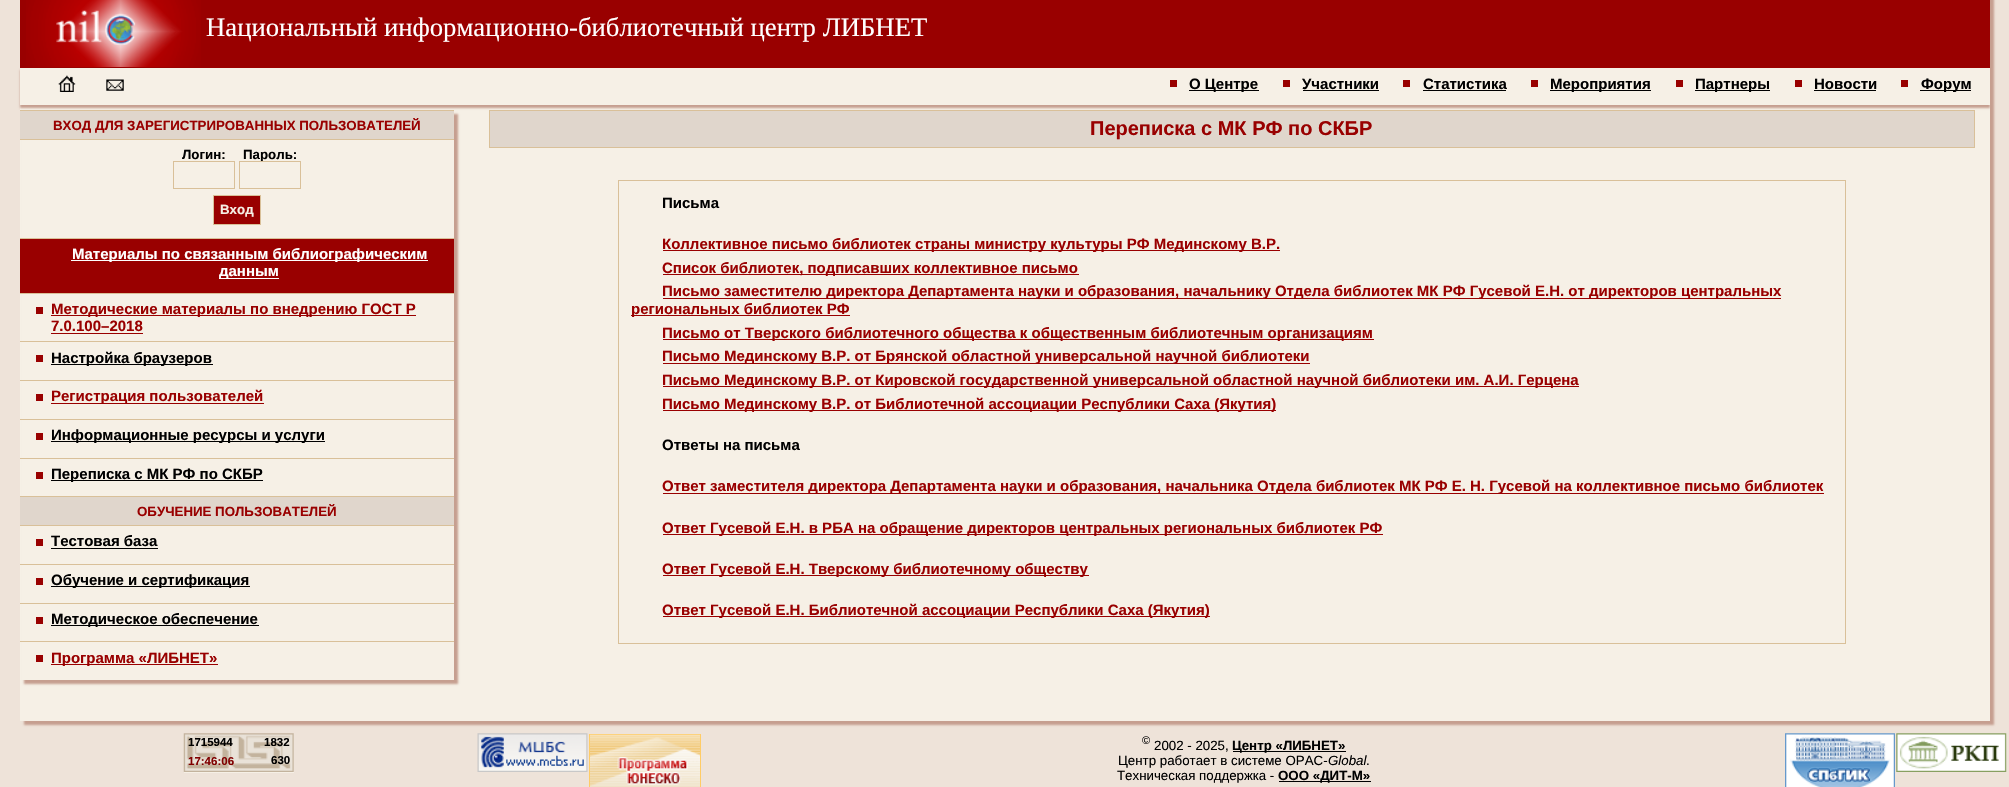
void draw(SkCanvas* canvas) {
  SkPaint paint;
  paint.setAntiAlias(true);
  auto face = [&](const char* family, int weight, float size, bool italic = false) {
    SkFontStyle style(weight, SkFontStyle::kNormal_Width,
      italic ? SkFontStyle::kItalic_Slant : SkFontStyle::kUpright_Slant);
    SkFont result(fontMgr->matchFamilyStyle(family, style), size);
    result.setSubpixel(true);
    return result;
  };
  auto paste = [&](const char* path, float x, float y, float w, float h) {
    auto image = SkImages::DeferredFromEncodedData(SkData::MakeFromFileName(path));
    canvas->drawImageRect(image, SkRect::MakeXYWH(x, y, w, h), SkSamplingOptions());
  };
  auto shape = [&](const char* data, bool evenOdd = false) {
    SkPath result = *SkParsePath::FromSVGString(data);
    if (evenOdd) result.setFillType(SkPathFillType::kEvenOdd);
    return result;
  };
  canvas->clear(0xffeee3d9);
  paint.setColor(0xffc69f90);
  paint.setMaskFilter(SkMaskFilter::MakeBlur(kNormal_SkBlurStyle, 1));
  canvas->drawRect(SkRect::MakeXYWH(24, -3, 1970, 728), paint);
  paint.setMaskFilter(nullptr);
  paint.setColor(0xfff6f0e6);
  canvas->drawRect(SkRect::MakeXYWH(20, 68, 1970, 653), paint);
  paint.setColor(0xff990000);
  canvas->drawRect(SkRect::MakeXYWH(20, 0, 1970, 68), paint);
  paste("img/1.png", 26, 0, 175, 67);
  paint.setColor(0xffc69f90);
  paint.setMaskFilter(SkMaskFilter::MakeBlur(kNormal_SkBlurStyle, 1));
  canvas->drawRect(SkRect::MakeXYWH(24, 114, 434, 570), paint);
  paint.setMaskFilter(nullptr);
  paint.setColor(0xffe0d6cc);
  canvas->drawRect(SkRect::MakeXYWH(20, 111, 434, 28), paint);
  paint.setColor(0xffd9c099);
  canvas->drawRect(SkRect::MakeXYWH(20, 110, 434, 1), paint);
  paint.setColor(0xffe0d6cc);
  canvas->drawRect(SkRect::MakeXYWH(489.5f, 110.5f, 1485, 37), paint);
  paint.setStroke(true);
  paint.setStrokeWidth(1);
  paint.setColor(0xffd9c099);
  canvas->drawRect(SkRect::MakeXYWH(489.5f, 110.5f, 1485, 37), paint);
  canvas->save();
  canvas->clipPath(shape("M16 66H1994V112H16ZM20 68H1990V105H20Z", true), true);
  paint.setStroke(false);
  paint.setColor(0xffc69f90);
  paint.setMaskFilter(SkMaskFilter::MakeBlur(kNormal_SkBlurStyle, 1));
  canvas->drawRect(SkRect::MakeXYWH(20, 70, 1970, 38), paint);
  paint.setMaskFilter(nullptr);
  canvas->restore();
  paste("img/2.png", 58, 75, 18, 17);
  paste("img/3.png", 106, 79, 18, 12);
  {
    const struct { float x, y, w, h; SkColor color; } items[] = {
      {1170, 80, 7, 7, 0xff990000},
      {1189, 90, 70, 1, 0xff000000},
      {1283, 80, 7, 7, 0xff990000},
      {1303, 90, 76, 1, 0xff000000},
      {1403, 80, 7, 7, 0xff990000},
      {1423, 90, 83, 1, 0xff000000},
      {1531, 80, 7, 7, 0xff990000},
      {1550, 90, 101, 1, 0xff000000},
      {1676, 80, 7, 7, 0xff990000},
      {1695, 90, 75, 1, 0xff000000},
      {1795, 80, 7, 7, 0xff990000},
      {1814, 90, 62, 1, 0xff000000},
      {1901, 80, 7, 7, 0xff990000},
      {1920, 90, 51, 1, 0xff000000},
      {22, 140, 432, 540, 0xfff6f0e6},
      {20, 139, 434, 1, 0xffd9c099},
    };
    for (auto [x, y, w, h, color] : items) {
      paint.setColor(color);
      canvas->drawRect(SkRect::MakeXYWH(x, y, w, h), paint);
    }
  }
  paint.setStroke(true);
  canvas->drawRect(SkRect::MakeXYWH(173.5f, 161.5f, 61, 27), paint);
  paint.setStroke(false);
  paint.setColor(0xff990000);
  canvas->drawRect(SkRect::MakeXYWH(213.5f, 195.5f, 47, 29), paint);
  paint.setStroke(true);
  paint.setColor(0xffd9c099);
  canvas->drawRect(SkRect::MakeXYWH(213.5f, 195.5f, 47, 29), paint);
  paint.setStroke(false);
  {
    const struct { float x, y, w, h; SkColor color; } items[] = {
      {20, 239, 434, 54, 0xff990000},
      {20, 238, 434, 1, 0xffd9c099},
      {71, 260, 357, 1, 0xffffffff},
      {219, 278, 60, 1, 0xffffffff},
      {20, 293, 434, 1, 0xffd9c099},
      {36, 307, 7, 7, 0xff990000},
      {51, 315, 365, 1, 0xff990000},
      {51, 333, 92, 1, 0xff990000},
      {20, 341, 434, 1, 0xffd9c099},
      {36, 355, 7, 7, 0xff990000},
      {51, 364, 162, 1, 0xff000000},
      {20, 380, 434, 1, 0xffd9c099},
      {36, 394, 7, 7, 0xff990000},
      {51, 403, 213, 1, 0xff990000},
      {20, 419, 434, 1, 0xffd9c099},
      {36, 433, 7, 7, 0xff990000},
      {51, 441, 274, 1, 0xff000000},
      {20, 458, 434, 1, 0xffd9c099},
      {36, 472, 7, 7, 0xff990000},
      {51, 480, 212, 1, 0xff000000},
      {20, 497, 434, 28, 0xffe0d6cc},
      {20, 496, 434, 1, 0xffd9c099},
      {20, 525, 434, 1, 0xffd9c099},
      {36, 539, 7, 7, 0xff990000},
      {51, 548, 107, 1, 0xff000000},
      {20, 564, 434, 1, 0xffd9c099},
      {36, 578, 7, 7, 0xff990000},
      {51, 586, 199, 1, 0xff000000},
      {20, 603, 434, 1, 0xffd9c099},
      {36, 617, 7, 7, 0xff990000},
      {51, 625, 208, 1, 0xff000000},
      {20, 641, 434, 1, 0xffd9c099},
      {36, 655, 7, 7, 0xff990000},
      {51, 664, 167, 1, 0xff990000},
    };
    for (auto [x, y, w, h, color] : items) {
      paint.setColor(color);
      canvas->drawRect(SkRect::MakeXYWH(x, y, w, h), paint);
    }
  }
  paint.setStroke(true);
  paint.setColor(0xffd9c099);
  canvas->drawRect(SkRect::MakeXYWH(618.5f, 180.5f, 1227, 463), paint);
  paint.setStroke(false);
  {
    const struct { float x, y, w, h; SkColor color; } items[] = {
      {663, 250, 617, 1, 0xff990000},
      {663, 274, 416, 1, 0xff990000},
      {663, 298, 1118, 1, 0xff990000},
      {631, 315, 219, 1, 0xff990000},
      {663, 339, 711, 1, 0xff990000},
      {663, 363, 647, 1, 0xff990000},
      {663, 386, 916, 1, 0xff990000},
      {663, 410, 613, 1, 0xff990000},
      {663, 493, 1161, 1, 0xff990000},
      {663, 534, 720, 1, 0xff990000},
      {663, 575, 426, 1, 0xff990000},
      {663, 616, 547, 1, 0xff990000},
      {184, 734, 110, 39, 0xfff6f0e6},
    };
    for (auto [x, y, w, h, color] : items) {
      paint.setColor(color);
      canvas->drawRect(SkRect::MakeXYWH(x, y, w, h), paint);
    }
  }
  paste("img/4.png", 183, 733, 111, 39);
  paste("img/5.png", 477, 733, 111, 39);
  paint.setStroke(true);
  paint.setColor(0xffffcc66);
  canvas->drawRect(SkRect::MakeXYWH(589.5f, 734.5f, 111, 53), paint);
  paste("img/6.png", 590, 734, 110, 53);
  paint.setStroke(false);
  paint.setColor(0xff000000);
  canvas->drawRect(SkRect::MakeXYWH(1233, 751, 113, 1), paint);
  paste("img/7.png", 1785, 733, 110, 54);
  paste("img/8.png", 1896, 733, 111, 39);
  canvas->drawRect(SkRect::MakeXYWH(1279, 781, 92, 1), paint);
  auto f0 = face("Liberation Serif", 400, 26.7f);
  paint.setColor(0xffffffff);
  canvas->drawString("Национальный информационно-библиотечный центр ЛИБНЕТ", 206, 36, f0, paint);
  auto f1 = face("Liberation Sans", 700, 15);
  paint.setColor(0xff000000);
  {
    const struct { const char* s; float x, y; } items[] = {
      {"О Центре", 1189, 89},
      {"Участники", 1302, 89},
      {"Статистика", 1423, 89},
      {"Мероприятия", 1550, 89},
      {"Партнеры", 1695, 89},
      {"Новости", 1814, 89},
      {"Форум", 1921, 89},
    };
    for (auto [s, x, y] : items) {
      canvas->drawString(s, x, y, f1, paint);
    }
  }
  auto f2 = face("Liberation Sans", 700, 13.3f);
  paint.setColor(0xff990000);
  canvas->drawString("ВХОД ДЛЯ ЗАРЕГИСТРИРОВАННЫХ ПОЛЬЗОВАТЕЛЕЙ", 53, 130, f2, paint);
  paint.setColor(0xff000000);
  canvas->drawString("Логин:", 182, 159, f2, paint);
  canvas->drawString("Пароль:", 243, 159, f2, paint);
  paint.setStroke(true);
  paint.setColor(0xffd9c099);
  canvas->drawRect(SkRect::MakeXYWH(239.5f, 161.5f, 61, 27), paint);
  paint.setStroke(false);
  paint.setColor(0xfff6f0e6);
  canvas->drawString("Вход", 220, 214, f2, paint);
  paint.setColor(0xffffffff);
  canvas->drawString("Материалы по связанным библиографическим", 72, 259, f1, paint);
  canvas->drawString("данным", 219, 276, f1, paint);
  paint.setColor(0xff990000);
  canvas->drawString("Методические материалы по внедрению ГОСТ Р", 51, 314, f1, paint);
  canvas->drawString("7.0.100–2018", 51, 331, f1, paint);
  paint.setColor(0xff000000);
  canvas->drawString("Настройка браузеров", 51, 363, f1, paint);
  paint.setColor(0xff990000);
  canvas->drawString("Регистрация пользователей", 51, 401, f1, paint);
  paint.setColor(0xff000000);
  canvas->drawString("Информационные ресурсы и услуги", 51, 440, f1, paint);
  canvas->drawString("Переписка с МК РФ по СКБР", 51, 479, f1, paint);
  paint.setColor(0xff990000);
  canvas->drawString("ОБУЧЕНИЕ ПОЛЬЗОВАТЕЛЕЙ", 137, 516, f2, paint);
  paint.setColor(0xff000000);
  {
    const struct { const char* s; float x, y; } items[] = {
      {"Тестовая база", 51, 546},
      {"Обучение и сертификация", 51, 585},
      {"Методическое обеспечение", 51, 624},
    };
    for (auto [s, x, y] : items) {
      canvas->drawString(s, x, y, f1, paint);
    }
  }
  paint.setColor(0xff990000);
  canvas->drawString("Программа «ЛИБНЕТ»", 51, 663, f1, paint);
  auto f3 = face("Liberation Sans", 700, 20);
  canvas->drawString("Переписка с МК РФ по СКБР", 1090, 135, f3, paint);
  paint.setColor(0xff000000);
  canvas->drawString("Письма", 662, 208, f1, paint);
  paint.setColor(0xff990000);
  {
    const struct { const char* s; float x, y; } items[] = {
      {"Коллективное письмо библиотек страны министру культуры РФ Мединскому В.Р.", 662, 249},
      {"Список библиотек, подписавших коллективное письмо", 662, 273},
      {"Письмо заместителю директора Департамента науки и образования, начальнику Отдела библиотек МК РФ Гусевой Е.Н. от директоров центральных", 662, 296},
      {"региональных библиотек РФ", 631, 314},
      {"Письмо от Тверского библиотечного общества к общественным библиотечным организациям", 662, 338},
      {"Письмо Мединскому В.Р. от Брянской областной универсальной научной библиотеки", 662, 361},
      {"Письмо Мединскому В.Р. от Кировской государственной универсальной областной научной библиотеки им. А.И. Герцена", 662, 385},
      {"Письмо Мединскому В.Р. от Библиотечной ассоциации Республики Саха (Якутия)", 662, 409},
    };
    for (auto [s, x, y] : items) {
      canvas->drawString(s, x, y, f1, paint);
    }
  }
  paint.setColor(0xff000000);
  canvas->drawString("Ответы на письма", 662, 450, f1, paint);
  paint.setColor(0xff990000);
  {
    const struct { const char* s; float x, y; } items[] = {
      {"Ответ заместителя директора Департамента науки и образования, начальника Отдела библиотек МК РФ Е. Н. Гусевой на коллективное письмо библиотек", 662, 491},
      {"Ответ Гусевой Е.Н. в РБА на обращение директоров центральных региональных библиотек РФ", 662, 533},
      {"Ответ Гусевой Е.Н. Тверскому библиотечному обществу", 662, 574},
      {"Ответ Гусевой Е.Н. Библиотечной ассоциации Республики Саха (Якутия)", 662, 615},
    };
    for (auto [s, x, y] : items) {
      canvas->drawString(s, x, y, f1, paint);
    }
  }
  auto f4 = face("Liberation Sans", 700, 11.5f);
  paint.setColor(0xff000000);
  canvas->drawString("1715944", 188, 746, f4, paint);
  canvas->drawString("1832", 264, 746, f4, paint);
  paint.setColor(0xff800000);
  canvas->drawString("17:46:06", 188, 765, f4, paint);
  paint.setColor(0xff000000);
  canvas->drawString("630", 271, 764, f4, paint);
  auto f5 = face("Liberation Sans", 400, 11);
  canvas->drawString("©", 1142, 744, f5, paint);
  auto f6 = face("Liberation Sans", 400, 13.3f);
  canvas->drawString("2002 - 2025,", 1154, 750, f6, paint);
  canvas->drawString("Центр «ЛИБНЕТ»", 1232, 750, f2, paint);
  canvas->drawString("Центр работает в системе OPAC-", 1118, 765, f6, paint);
  auto f7 = face("Liberation Sans", 400, 13.3f, true);
  canvas->drawString("Global", 1328, 765, f7, paint);
  canvas->drawString(".", 1366, 765, f6, paint);
  canvas->drawString("Техническая поддержка -", 1117, 780, f6, paint);
  canvas->drawString("ООО «ДИТ-М»", 1278, 780, f2, paint);
}
